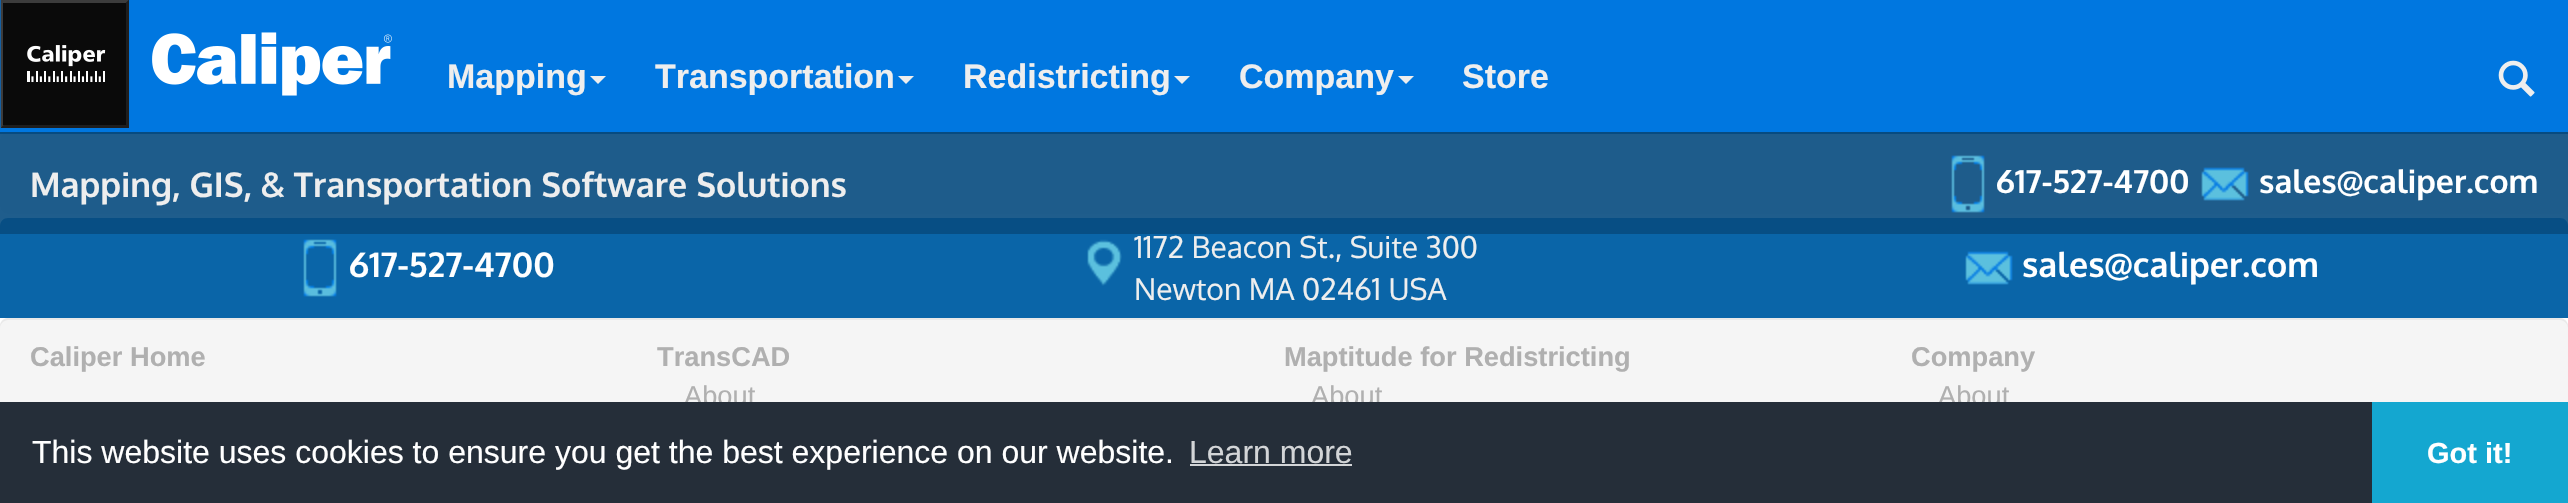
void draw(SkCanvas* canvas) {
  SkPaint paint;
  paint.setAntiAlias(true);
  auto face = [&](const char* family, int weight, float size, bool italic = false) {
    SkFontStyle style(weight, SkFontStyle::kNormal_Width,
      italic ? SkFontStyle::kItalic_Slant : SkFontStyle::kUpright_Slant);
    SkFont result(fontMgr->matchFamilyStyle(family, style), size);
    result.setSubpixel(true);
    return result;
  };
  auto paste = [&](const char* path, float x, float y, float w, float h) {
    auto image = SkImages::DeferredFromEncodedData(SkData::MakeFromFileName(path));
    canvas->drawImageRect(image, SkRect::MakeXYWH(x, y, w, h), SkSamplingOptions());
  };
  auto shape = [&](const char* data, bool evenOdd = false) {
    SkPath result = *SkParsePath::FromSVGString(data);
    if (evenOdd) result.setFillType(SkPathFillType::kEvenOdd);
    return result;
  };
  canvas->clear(0xffffffff);
  paint.setColor(0xff0077e0);
  canvas->drawRect(SkRect::MakeXYWH(0, 0, 2568, 132), paint);
  paint.setColor(0xfff5f5f5);
  canvas->drawRoundRect(SkRect::MakeXYWH(0, 132, 2568, 82), 8, 8, paint);
  paint.setColor(0xff074b80);
  canvas->drawRect(SkRect::MakeXYWH(0, 132, 2568, 2), paint);
  paste("img/1.png", 0, 0, 392, 128);
  paint.setColor(0xffeeeeee);
  canvas->drawPath(shape("M590 76H606L598 84Z"), paint);
  canvas->drawPath(shape("M898 76H914L906 84Z"), paint);
  canvas->drawPath(shape("M1174 76H1190L1182 84Z"), paint);
  canvas->drawPath(shape("M1398 76H1414L1406 84Z"), paint);
  paste("img/2.png", 2498, 60, 37, 37);
  paint.setColor(0xff0a65a8);
  canvas->drawPath(shape("M8 218H2560C2564.5 218 2568 221.5 2568 226V318H0V226C0 221.5 3.5 218 8 218Z"), paint);
  paint.setColor(0xe6074b80);
  canvas->drawRect(SkRect::MakeXYWH(0, 134, 2568, 100), paint);
  paste("img/3.png", 1951, 155, 34, 58);
  paste("img/4.png", 2201, 167, 48, 34);
  paste("img/5.png", 303, 239, 34, 58);
  paste("img/6.png", 1087, 239, 35, 47);
  paste("img/7.png", 1965, 251, 48, 34);
  paint.setColor(0xfff5f5f5);
  canvas->drawRoundRect(SkRect::MakeXYWH(0, 318, 2568, 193), 8, 8, paint);
  paint.setColor(0xffe9e9e9);
  canvas->drawPath(shape("M8 320H2560C2564 320 2568 324 2568 328V326C2568 322 2564 318 2560 318H8C4 318 0 322 0 326V328C0 324 4 320 8 320Z"), paint);
  paint.setColor(0xff14a7d0);
  canvas->drawRect(SkRect::MakeXYWH(2372, 402, 196, 101), paint);
  auto f0 = face("Liberation Sans", 700, 34);
  paint.setColor(0xffeeeeee);
  {
    const struct { const char* s; float x, y; } items[] = {
      {"Mapping", 447, 88},
      {"Transportation", 655, 88},
      {"Redistricting", 963, 88},
      {"Company", 1239, 88},
      {"Store", 1462, 88},
    };
    for (auto [s, x, y] : items) {
      canvas->drawString(s, x, y, f0, paint);
    }
  }
  auto f1 = face("Oxygen", 700, 34);
  canvas->drawString("Mapping, GIS, & Transportation Software Solutions", 30, 197, f1, paint);
  auto f2 = face("Oxygen", 700, 32);
  paint.setColor(0xffffffff);
  canvas->drawString("617-527-4700", 1996, 193, f2, paint);
  canvas->drawString("sales@caliper.com", 2259, 193, f2, paint);
  canvas->drawString("617-527-4700", 349, 277, f1, paint);
  auto f3 = face("Oxygen", 400, 30);
  paint.setColor(0xffeeeeee);
  canvas->drawString("1172 Beacon St., Suite 300", 1134, 258, f3, paint);
  canvas->drawString("Newton MA 02461 USA", 1134, 300, f3, paint);
  paint.setColor(0xffffffff);
  canvas->drawString("sales@caliper.com", 2022, 277, f1, paint);
  auto f4 = face("Liberation Sans", 700, 27.25f);
  paint.setColor(0xffb0b0b0);
  canvas->drawString("Caliper Home", 30, 366, f4, paint);
  canvas->drawString("TransCAD", 657, 366, f4, paint);
  auto f5 = face("Liberation Sans", 400, 27.25f);
  canvas->drawString("About", 684, 405, f5, paint);
  canvas->drawString("Maptitude for Redistricting", 1284, 366, f4, paint);
  canvas->drawString("About", 1311, 405, f5, paint);
  canvas->drawString("Company", 1911, 366, f4, paint);
  canvas->drawString("About", 1938, 405, f5, paint);
  paint.setColor(0xff252e39);
  canvas->drawRect(SkRect::MakeXYWH(0, 402, 2372, 101), paint);
  auto f6 = face("Liberation Sans", 400, 32);
  paint.setColor(0xffffffff);
  canvas->drawString("This website uses cookies to ensure you get the best experience on our website.", 32, 463, f6, paint);
  paint.setColor(0xffd3d5d7);
  canvas->drawString("Learn more", 1189, 463, f6, paint);
  canvas->drawRect(SkRect::MakeXYWH(1190, 464, 162, 2), paint);
  auto f7 = face("Liberation Sans", 700, 29);
  paint.setColor(0xffffffff);
  canvas->drawString("Got it!", 2427, 463, f7, paint);
}
